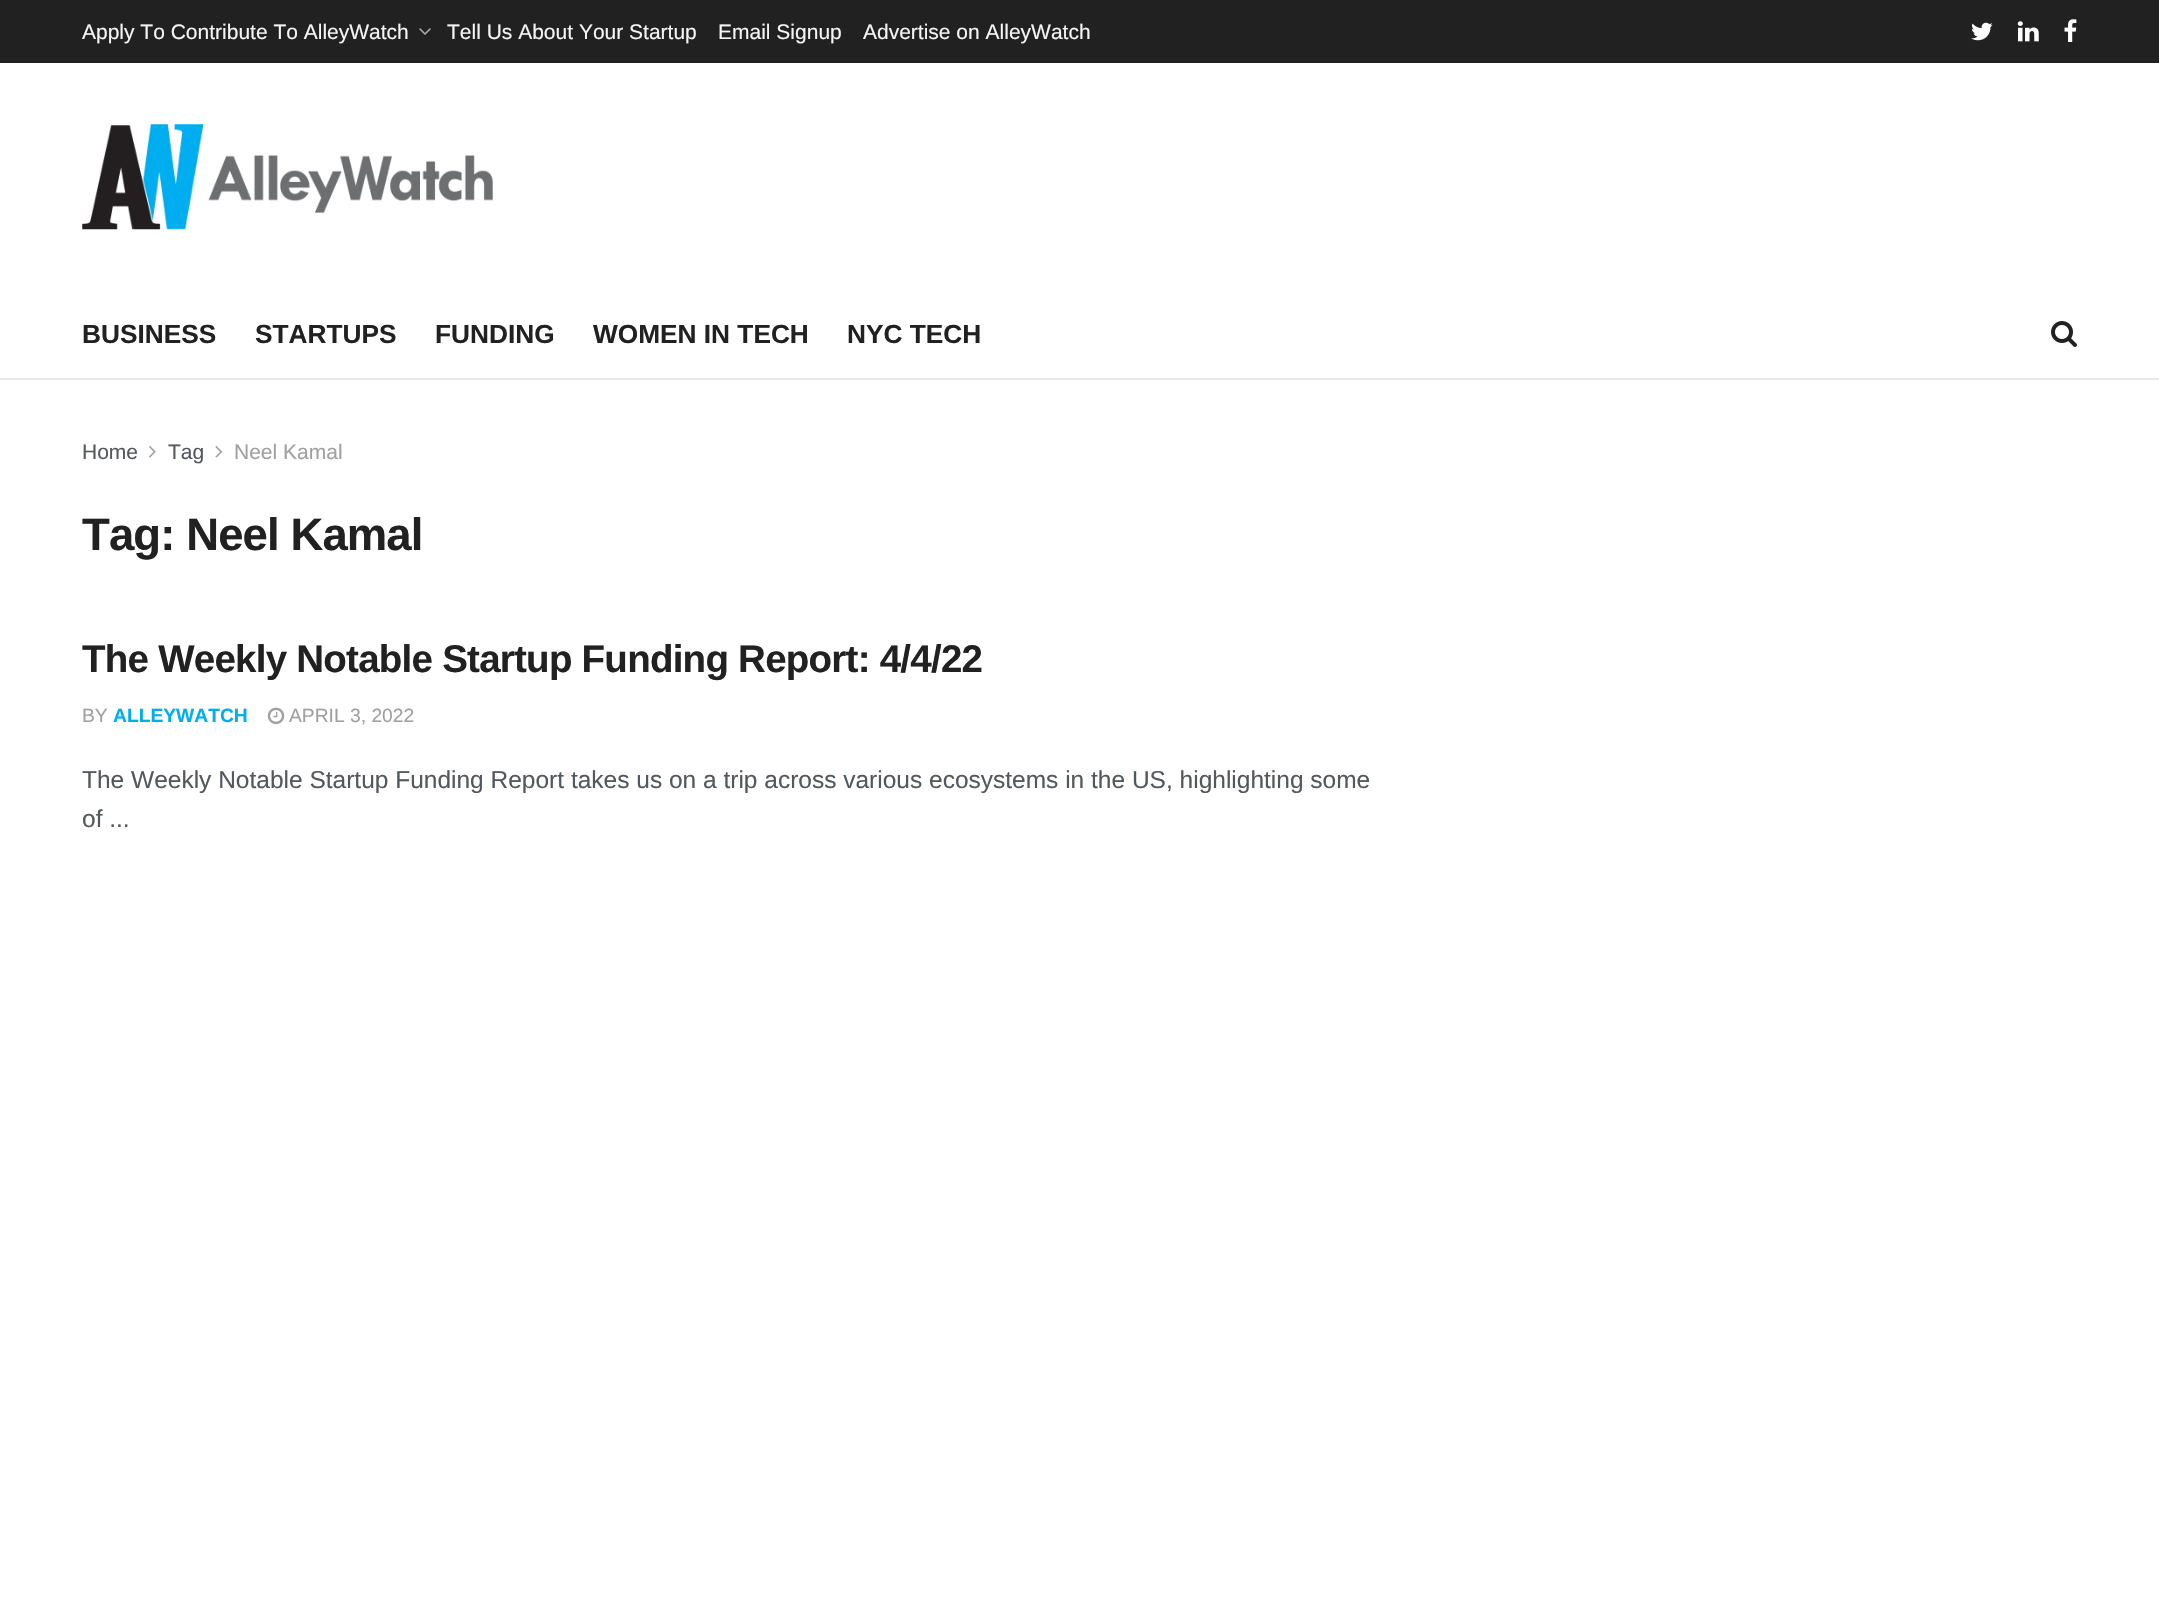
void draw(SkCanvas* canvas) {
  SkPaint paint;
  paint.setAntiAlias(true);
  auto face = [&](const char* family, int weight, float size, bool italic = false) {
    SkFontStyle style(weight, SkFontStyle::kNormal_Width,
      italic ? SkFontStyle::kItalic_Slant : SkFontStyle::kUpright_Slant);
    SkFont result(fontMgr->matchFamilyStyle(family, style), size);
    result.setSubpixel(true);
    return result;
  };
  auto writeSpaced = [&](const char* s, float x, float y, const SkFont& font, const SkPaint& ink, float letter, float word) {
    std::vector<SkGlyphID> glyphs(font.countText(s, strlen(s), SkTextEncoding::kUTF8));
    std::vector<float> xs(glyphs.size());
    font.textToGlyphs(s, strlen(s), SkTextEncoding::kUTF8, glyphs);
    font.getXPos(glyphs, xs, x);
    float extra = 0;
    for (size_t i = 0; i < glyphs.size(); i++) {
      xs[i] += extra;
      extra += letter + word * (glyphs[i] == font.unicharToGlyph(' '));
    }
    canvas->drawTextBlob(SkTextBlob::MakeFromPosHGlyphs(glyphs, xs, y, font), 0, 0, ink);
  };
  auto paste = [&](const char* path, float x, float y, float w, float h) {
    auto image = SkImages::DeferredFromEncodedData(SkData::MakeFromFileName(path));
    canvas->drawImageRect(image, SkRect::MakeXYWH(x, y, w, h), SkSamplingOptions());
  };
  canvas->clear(0xffffffff);
  paint.setColor(0xff212121);
  canvas->drawRect(SkRect::MakeXYWH(0, 0, 2159, 63), paint);
  paste("img/1.png", 419, 28, 12, 7);
  paste("img/2.png", 1971, 22, 22, 19);
  paste("img/3.png", 2017, 21, 22, 21);
  paste("img/4.png", 2064, 19, 13, 23);
  paste("img/5.png", 82, 124, 411, 106);
  paint.setColor(0xffe8e8e8);
  canvas->drawRect(SkRect::MakeXYWH(0, 378, 2159, 2), paint);
  paste("img/6.png", 2051, 321, 26, 26);
  paste("img/7.png", 149, 446, 7, 12);
  paste("img/8.png", 215, 446, 8, 12);
  paste("img/9.png", 267, 707, 18, 18);
  auto f0 = face("Liberation Sans", 400, 21);
  paint.setColor(0xfff5f5f5);
  {
    const struct { const char* s; float x, y; } items[] = {
      {"Apply To Contribute To AlleyWatch", 82, 39},
      {"Tell Us About Your Startup", 447, 39},
      {"Email Signup", 718, 39},
      {"Advertise on AlleyWatch", 863, 39},
    };
    for (auto [s, x, y] : items) {
      canvas->drawString(s, x, y, f0, paint);
    }
  }
  auto f1 = face("Liberation Sans", 700, 26.25f);
  paint.setColor(0xff212121);
  {
    const struct { const char* s; float x, y; } items[] = {
      {"BUSINESS", 82, 343},
      {"STARTUPS", 255, 343},
      {"FUNDING", 435, 343},
      {"WOMEN IN TECH", 593, 343},
      {"NYC TECH", 847, 343},
    };
    for (auto [s, x, y] : items) {
      canvas->drawString(s, x, y, f1, paint);
    }
  }
  paint.setColor(0xff53585c);
  canvas->drawString("Home", 82, 459, f0, paint);
  canvas->drawString("Tag", 168, 459, f0, paint);
  paint.setColor(0xffa0a0a0);
  canvas->drawString("Neel Kamal", 234, 459, f0, paint);
  auto f2 = face("Liberation Sans", 700, 45.5f);
  paint.setColor(0xff212121);
  writeSpaced("Tag: Neel Kamal", 82, 550, f2, paint, -0.9f, 0);
  auto f3 = face("Liberation Sans", 700, 38.5f);
  writeSpaced("The Weekly Notable Startup Funding Report: 4/4/22", 82, 672, f3, paint, -0.75f, 0);
  auto f4 = face("Liberation Sans", 400, 19.25f);
  paint.setColor(0xffa0a0a0);
  canvas->drawString("BY", 82, 722, f4, paint);
  auto f5 = face("Liberation Sans", 700, 19.25f);
  paint.setColor(0xff00aeef);
  canvas->drawString("ALLEYWATCH", 113, 722, f5, paint);
  paint.setColor(0xffa0a0a0);
  canvas->drawString("APRIL 3, 2022", 289, 722, f4, paint);
  auto f6 = face("Liberation Sans", 400, 24.5f);
  paint.setColor(0xff53585c);
  canvas->drawString("The Weekly Notable Startup Funding Report takes us on a trip across various ecosystems in the US, highlighting some", 82, 788, f6, paint);
  canvas->drawString("of ...", 82, 827, f6, paint);
}
